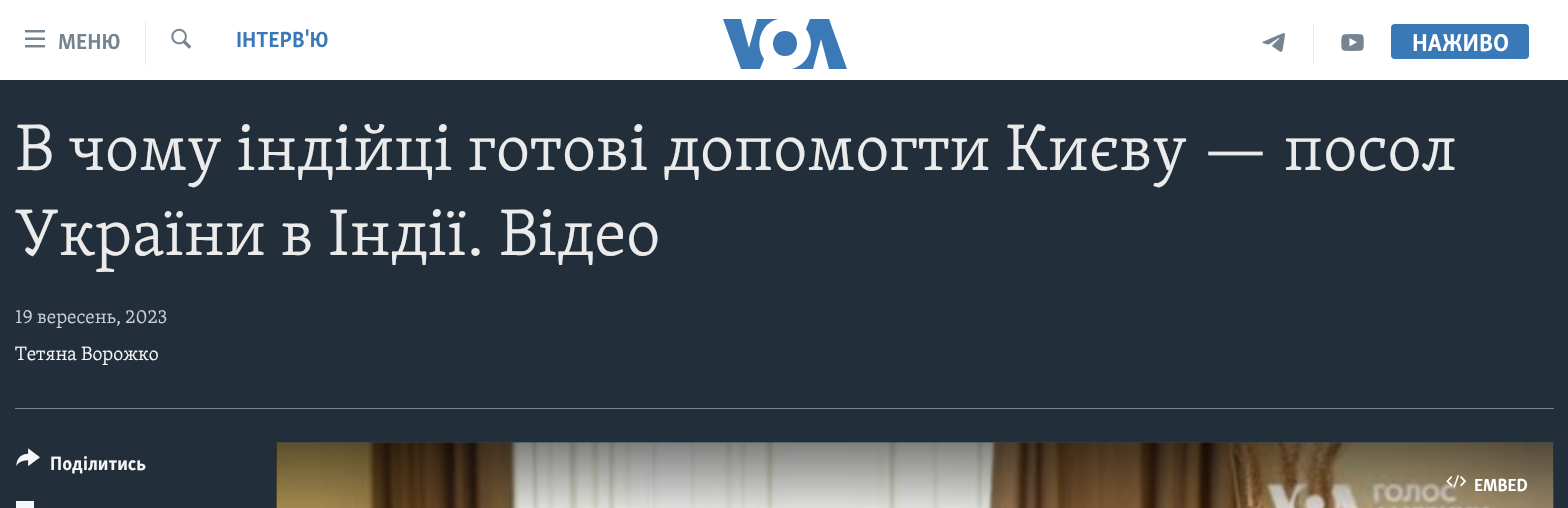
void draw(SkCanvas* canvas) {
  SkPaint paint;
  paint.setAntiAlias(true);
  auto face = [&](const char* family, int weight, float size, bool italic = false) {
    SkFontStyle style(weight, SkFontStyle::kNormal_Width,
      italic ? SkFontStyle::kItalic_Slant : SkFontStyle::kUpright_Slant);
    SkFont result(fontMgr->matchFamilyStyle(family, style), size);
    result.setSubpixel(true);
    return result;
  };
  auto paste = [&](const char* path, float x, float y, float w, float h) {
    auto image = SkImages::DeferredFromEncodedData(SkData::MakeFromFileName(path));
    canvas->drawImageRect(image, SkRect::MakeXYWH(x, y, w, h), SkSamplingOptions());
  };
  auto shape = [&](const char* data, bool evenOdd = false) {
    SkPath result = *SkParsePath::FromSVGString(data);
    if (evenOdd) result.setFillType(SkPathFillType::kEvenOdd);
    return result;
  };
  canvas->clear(0xffffffff);
  paste("img/1.png", 25, 30, 20, 18);
  paint.setColor(0xffebebeb);
  canvas->drawRect(SkRect::MakeXYWH(145, 21, 1, 44), paint);
  paste("img/2.png", 171, 28, 21, 21);
  paint.setColor(0xff3b79b7);
  canvas->drawPath(shape("M764 59L760 69H741L723 19H741L749 48L757 19H778C761 23 754 44 764 59ZM785 31C769 31 769 56 785 56C801 56 801 31 785 31ZM811 44C811 56 803 66 792 69H813L821 39L829 69H847L829 19H810L806 29C809 33 811 38 811 44Z"), paint);
  paint.setColor(0xffebebeb);
  canvas->drawRect(SkRect::MakeXYWH(1313, 24, 1, 39), paint);
  paste("img/3.png", 1262, 33, 23, 19);
  paste("img/4.png", 1341, 34, 23, 17);
  paint.setColor(0xff3a79b7);
  canvas->drawRoundRect(SkRect::MakeXYWH(1391, 24, 138, 35), 4, 4, paint);
  paint.setColor(0xff222f3a);
  canvas->drawRect(SkRect::MakeXYWH(0, 80, 1568, 428), paint);
  paint.setColor(0xff768492);
  canvas->drawRect(SkRect::MakeXYWH(15, 408, 1539, 1), paint);
  paste("img/5.png", 16, 448, 24, 18);
  paint.setColor(0xfff6f7f8);
  canvas->drawRect(SkRect::MakeXYWH(16, 501, 18, 7), paint);
  paint.setColor(0xff000000);
  canvas->drawRect(SkRect::MakeXYWH(276, 443, 1278, 65), paint);
  paste("img/6.png", 276, 442, 1278, 66);
  {
    const SkColor colors[] = {0x80000000, 0x00000000};
    const float stops[] = {0, 1};
    const SkPoint ends[] = {{915, 442}, {915, 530}};
    paint.setShader(SkGradientShader::MakeLinear(ends, colors, stops, 2, SkTileMode::kClamp));
    paint.setAlpha(255);
  }
  canvas->drawRect(SkRect::MakeXYWH(276, 443, 1278, 65), paint);
  paste("img/7.png", 1446, 475, 21, 13);
  auto f0 = face("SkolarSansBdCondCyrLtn", 700, 22.5f);
  paint.setShader(nullptr);
  paint.setColor(0xff768492);
  canvas->drawString("МЕНЮ", 58, 49, f0, paint);
  paint.setColor(0xff3a79b7);
  canvas->drawString("ІНТЕРВ'Ю", 236, 47, f0, paint);
  auto f1 = face("SkolarSansBdCondCyrLtn", 700, 25);
  paint.setColor(0xffffffff);
  canvas->drawString("НАЖИВО", 1412, 51, f1, paint);
  auto f2 = face("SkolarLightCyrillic", 300, 67.5f);
  paint.setColor(0xffebebeb);
  canvas->drawString("В чому індійці готові допомогти Києву — посол", 15, 170, f2, paint);
  canvas->drawString("України в Індії. Відео", 15, 255, f2, paint);
  auto f3 = face("SkolarLightCyrillic", 300, 19.75f);
  paint.setColor(0xffcbd1d6);
  canvas->drawString("19 вересень, 2023", 15, 323, f3, paint);
  paint.setColor(0xfff6f7f8);
  canvas->drawString("Тетяна Ворожко", 15, 360, f3, paint);
  auto f4 = face("SkolarSansBdCondCyrLtn", 700, 19.75f);
  canvas->drawString("Поділитись", 50, 470, f4, paint);
  auto f5 = face("SkolarSansBdCondCyrLtn", 700, 18);
  paint.setColor(0xffffffff);
  canvas->drawString("EMBED", 1474, 491, f5, paint);
}
